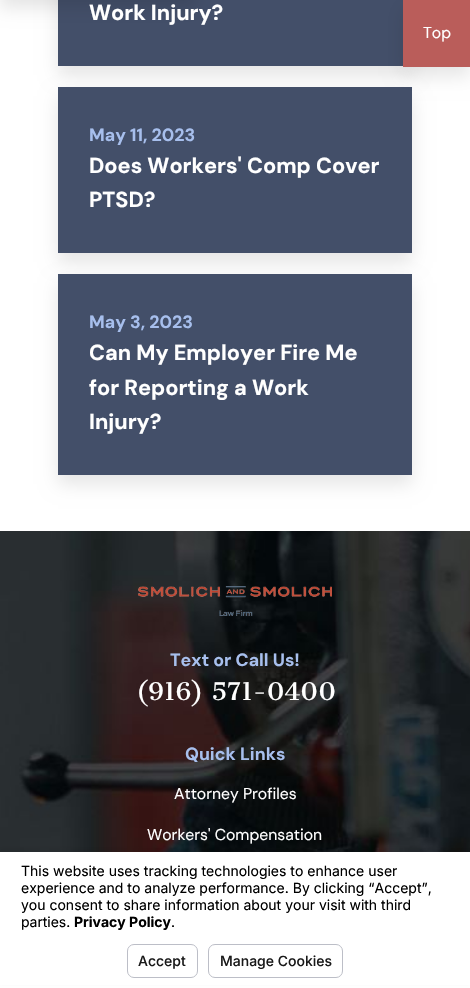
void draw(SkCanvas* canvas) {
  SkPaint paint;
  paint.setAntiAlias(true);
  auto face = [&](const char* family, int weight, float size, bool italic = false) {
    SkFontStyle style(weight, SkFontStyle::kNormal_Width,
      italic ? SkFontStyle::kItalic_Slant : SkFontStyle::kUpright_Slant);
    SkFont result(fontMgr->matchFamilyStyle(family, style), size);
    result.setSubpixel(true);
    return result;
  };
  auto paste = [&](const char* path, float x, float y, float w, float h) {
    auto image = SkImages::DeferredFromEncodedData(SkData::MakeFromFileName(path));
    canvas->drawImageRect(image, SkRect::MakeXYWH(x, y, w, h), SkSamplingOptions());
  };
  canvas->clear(0xffffffff);
  paint.setColor(0x1a000000);
  paint.setMaskFilter(SkMaskFilter::MakeBlur(kNormal_SkBlurStyle, 8.5f));
  canvas->drawRect(SkRect::MakeXYWH(58, -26, 354, 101), paint);
  paint.setMaskFilter(nullptr);
  paint.setColor(0xff434f69);
  canvas->drawRect(SkRect::MakeXYWH(58, 0, 345, 66), paint);
  paint.setColor(0x1a000000);
  paint.setMaskFilter(SkMaskFilter::MakeBlur(kNormal_SkBlurStyle, 8.5f));
  canvas->drawRect(SkRect::MakeXYWH(58, 96, 354, 166), paint);
  paint.setMaskFilter(nullptr);
  paint.setColor(0xff434f69);
  canvas->drawRect(SkRect::MakeXYWH(58, 87, 354, 166), paint);
  paint.setColor(0x1a000000);
  paint.setMaskFilter(SkMaskFilter::MakeBlur(kNormal_SkBlurStyle, 8.5f));
  canvas->drawRect(SkRect::MakeXYWH(58, 283, 354, 201), paint);
  paint.setMaskFilter(nullptr);
  paint.setColor(0xff434f69);
  canvas->drawRect(SkRect::MakeXYWH(58, 274, 354, 201), paint);
  paint.setColor(0x1a000000);
  paint.setMaskFilter(SkMaskFilter::MakeBlur(kNormal_SkBlurStyle, 8.5f));
  canvas->drawRect(SkRect::MakeXYWH(0, -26, 197, 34), paint);
  paint.setMaskFilter(nullptr);
  paint.setMaskFilter(SkMaskFilter::MakeBlur(kNormal_SkBlurStyle, 8.5f));
  canvas->drawRect(SkRect::MakeXYWH(403, 9, 67, 67), paint);
  paint.setMaskFilter(nullptr);
  paint.setColor(0xffba5d5a);
  canvas->drawRect(SkRect::MakeXYWH(403, 0, 67, 67), paint);
  paste("img/1.png", 0, 531, 470, 321);
  paste("img/2.png", 138, 586, 194, 30);
  paint.setColor(0x0d000000);
  paint.setMaskFilter(SkMaskFilter::MakeBlur(kNormal_SkBlurStyle, 1.5f));
  canvas->drawRect(SkRect::MakeXYWH(0, 848, 470, 136), paint);
  paint.setMaskFilter(nullptr);
  paint.setColor(0xffffffff);
  canvas->drawRect(SkRect::MakeXYWH(0, 852, 470, 133), paint);
  paint.setStroke(true);
  paint.setStrokeWidth(1);
  paint.setColor(0xffbcbec7);
  canvas->drawRoundRect(SkRect::MakeXYWH(127.5f, 944.5f, 70, 33), 6.5f, 6.5f, paint);
  canvas->drawRoundRect(SkRect::MakeXYWH(208.5f, 944.5f, 134, 33), 6.5f, 6.5f, paint);
  auto f0 = face("DM Sans", 700, 21.7f);
  paint.setStroke(false);
  paint.setColor(0xffffffff);
  canvas->drawString("Work Injury?", 89, 20, f0, paint);
  auto f1 = face("DM Sans", 700, 17.75f);
  paint.setColor(0xffa7bfed);
  canvas->drawString("May 11, 2023", 89, 141, f1, paint);
  paint.setColor(0xffffffff);
  canvas->drawString("Does Workers' Comp Cover", 89, 173, f0, paint);
  canvas->drawString("PTSD?", 89, 207, f0, paint);
  paint.setColor(0xffa7bfed);
  canvas->drawString("May 3, 2023", 89, 328, f1, paint);
  paint.setColor(0xffffffff);
  {
    const struct { const char* s; float x, y; } items[] = {
      {"Can My Employer Fire Me", 89, 360},
      {"for Reporting a Work", 89, 395},
      {"Injury?", 89, 429},
    };
    for (auto [s, x, y] : items) {
      canvas->drawString(s, x, y, f0, paint);
    }
  }
  auto f2 = face("DM Sans", 400, 15.75f);
  canvas->drawString("Top", 423, 38, f2, paint);
  paint.setColor(0xffa7bfed);
  canvas->drawString("Text or Call Us!", 170, 666, f1, paint);
  auto f3 = face("Cantata One", 400, 23.75f);
  paint.setColor(0xffffffff);
  canvas->drawString("(916) 571-0400", 136, 700, f3, paint);
  paint.setColor(0xffa7bfed);
  canvas->drawString("Quick Links", 185, 760, f1, paint);
  paint.setColor(0xffffffff);
  canvas->drawString("Attorney Profiles", 174, 799, f2, paint);
  canvas->drawString("Workers' Compensation", 147, 840, f2, paint);
  auto f4 = face("Inter", 400, 14);
  paint.setColor(0xff000000);
  {
    const struct { const char* s; float x, y; } items[] = {
      {"This website uses tracking technologies to enhance user", 21, 876},
      {"experience and to analyze performance. By clicking “Accept”,", 21, 893},
      {"you consent to share information about your visit with third", 21, 910},
      {"parties.", 21, 927},
    };
    for (auto [s, x, y] : items) {
      canvas->drawString(s, x, y, f4, paint);
    }
  }
  auto f5 = face("Inter", 700, 14);
  canvas->drawString("Privacy Policy", 74, 927, f5, paint);
  canvas->drawString(".", 171, 927, f4, paint);
  auto f6 = face("Inter", 500, 14);
  paint.setColor(0xff191919);
  canvas->drawString("Accept", 138, 966, f6, paint);
  canvas->drawString("Manage Cookies", 220, 966, f6, paint);
}
